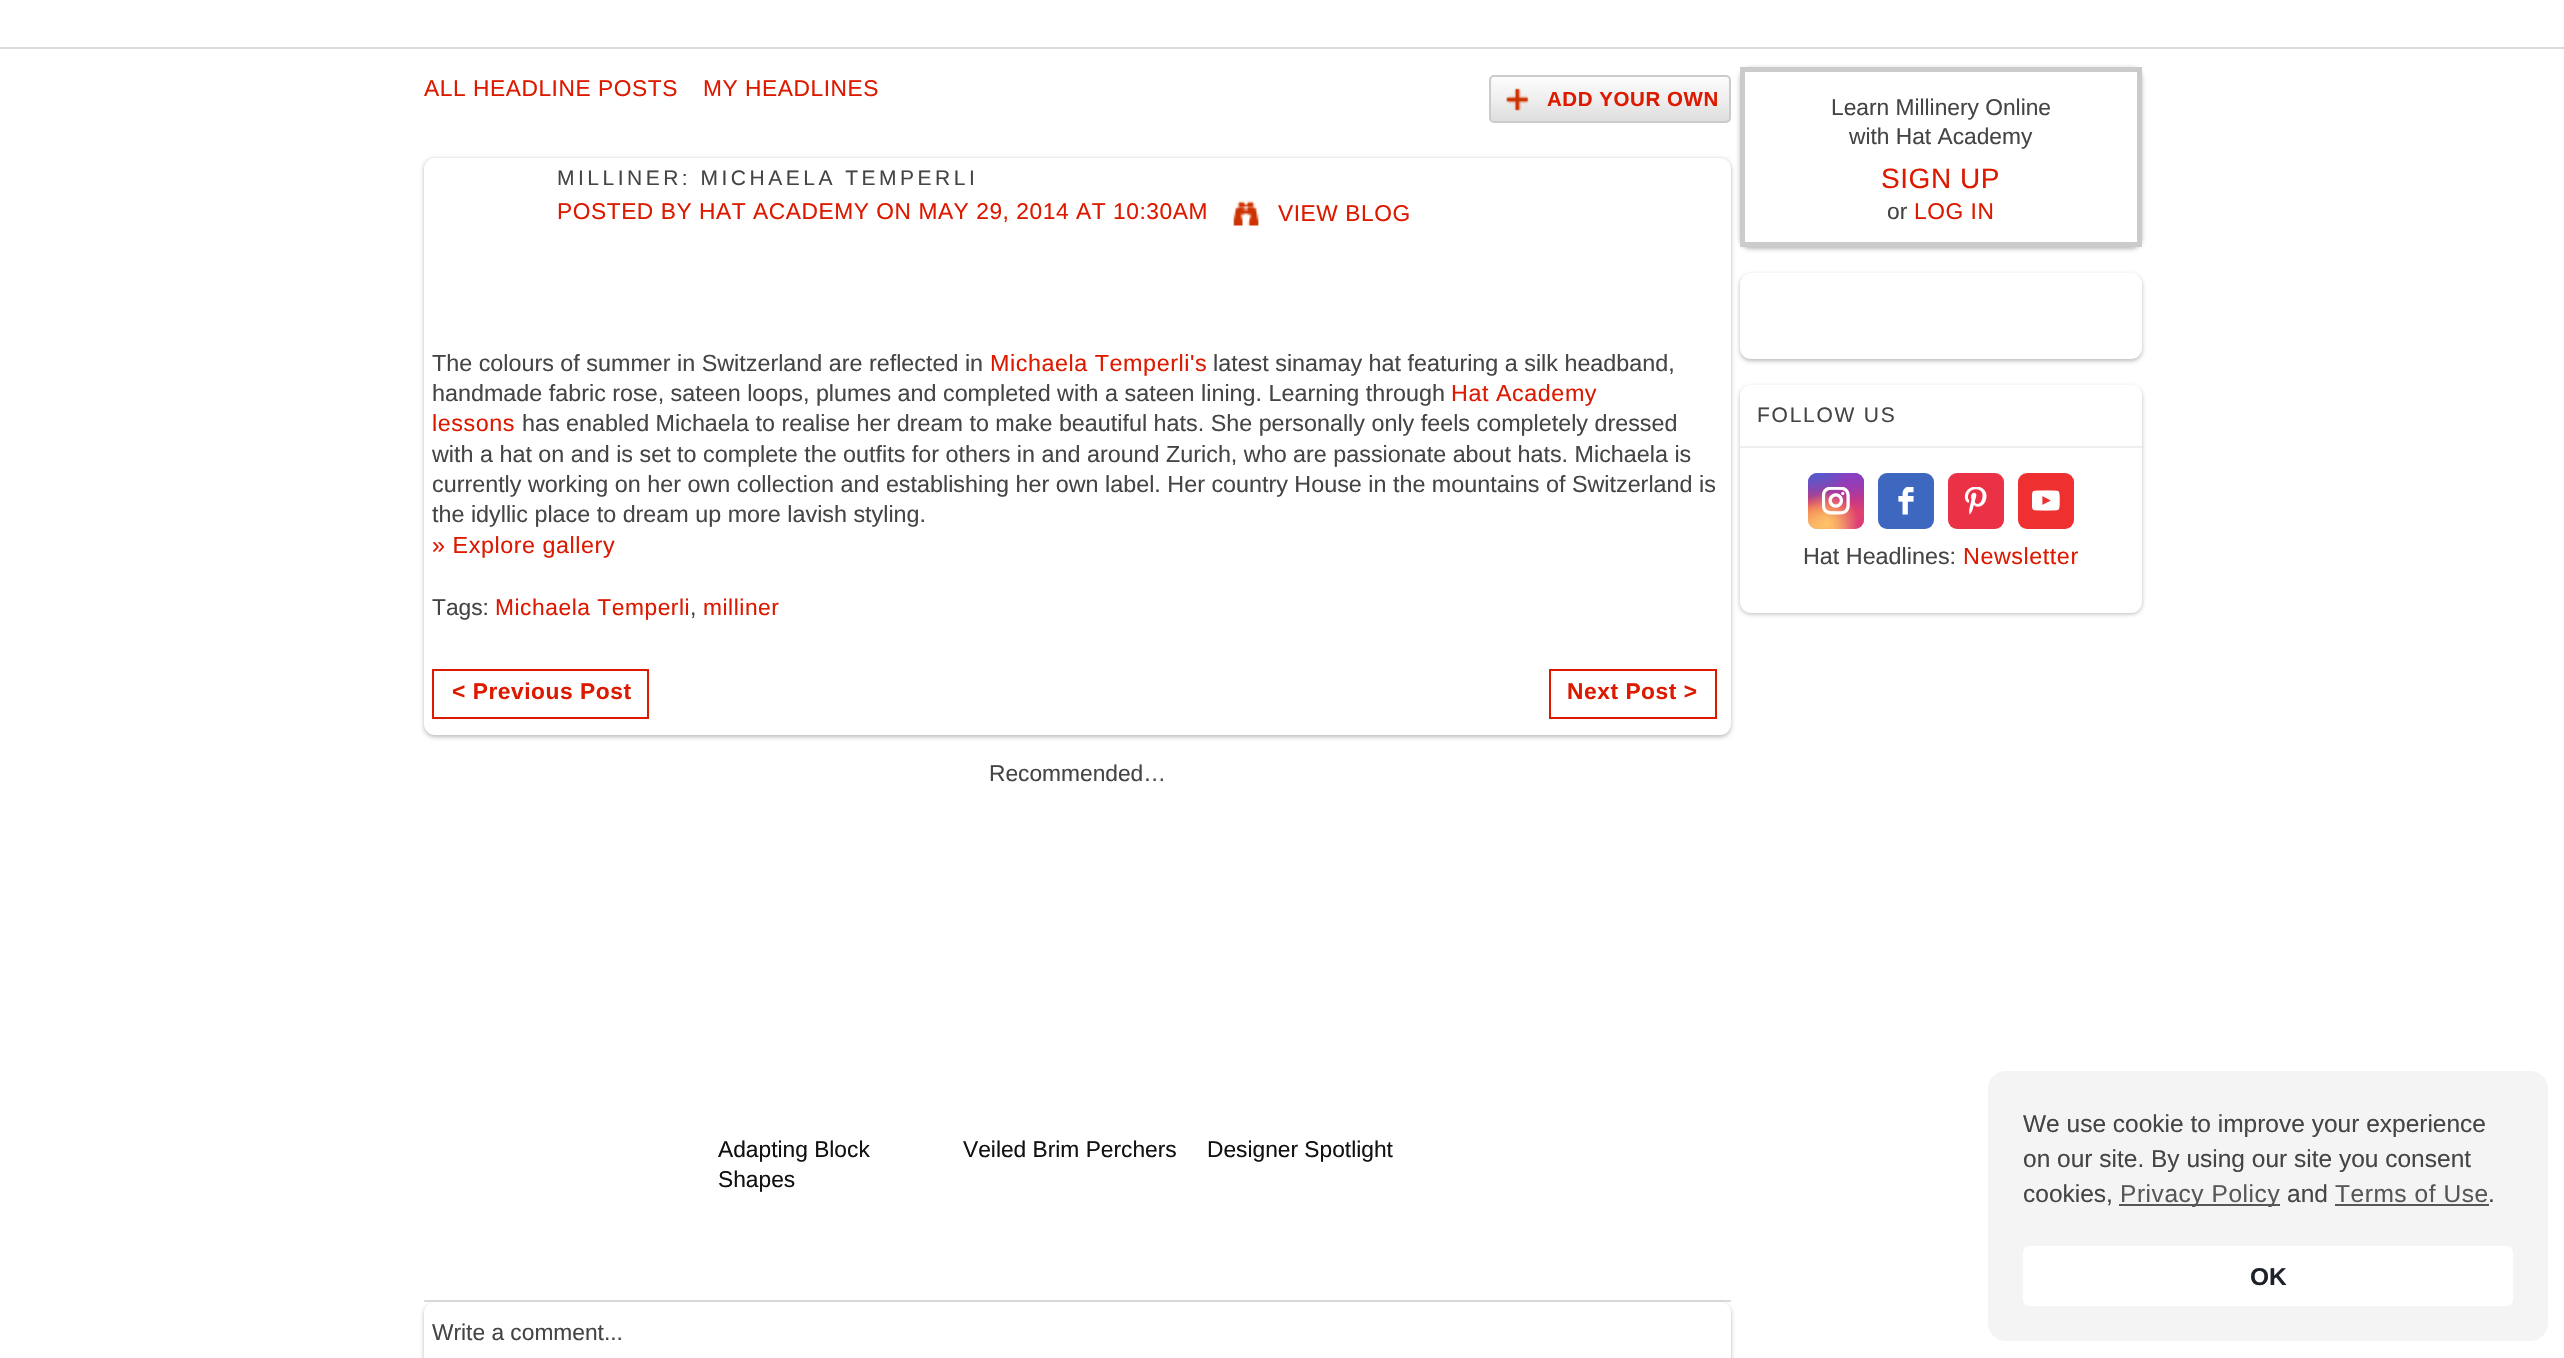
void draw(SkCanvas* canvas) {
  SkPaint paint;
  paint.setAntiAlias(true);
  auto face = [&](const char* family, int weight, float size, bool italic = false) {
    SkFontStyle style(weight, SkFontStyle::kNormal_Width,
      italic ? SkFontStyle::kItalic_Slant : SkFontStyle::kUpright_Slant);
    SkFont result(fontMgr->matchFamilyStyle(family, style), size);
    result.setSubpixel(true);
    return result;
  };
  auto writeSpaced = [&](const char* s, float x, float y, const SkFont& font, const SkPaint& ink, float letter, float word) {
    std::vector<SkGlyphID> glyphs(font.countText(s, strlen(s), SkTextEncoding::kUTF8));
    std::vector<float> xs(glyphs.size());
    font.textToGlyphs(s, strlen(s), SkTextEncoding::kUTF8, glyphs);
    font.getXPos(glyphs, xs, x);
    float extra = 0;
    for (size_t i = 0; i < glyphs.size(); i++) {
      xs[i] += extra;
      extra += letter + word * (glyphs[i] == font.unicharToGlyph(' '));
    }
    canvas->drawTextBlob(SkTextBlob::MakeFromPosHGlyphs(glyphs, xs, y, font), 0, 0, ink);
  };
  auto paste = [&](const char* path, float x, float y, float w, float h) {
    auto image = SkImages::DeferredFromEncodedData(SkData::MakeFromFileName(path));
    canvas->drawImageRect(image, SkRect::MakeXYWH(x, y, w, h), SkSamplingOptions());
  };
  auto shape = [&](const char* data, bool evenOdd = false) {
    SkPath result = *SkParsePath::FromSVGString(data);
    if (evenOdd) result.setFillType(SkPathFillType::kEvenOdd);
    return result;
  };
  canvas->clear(0xffffffff);
  paint.setColor(0xffdbdbdb);
  canvas->drawRect(SkRect::MakeXYWH(0, 47, 2564, 2), paint);
  paste("img/1.png", 1489, 78, 242, 43);
  paint.setStroke(true);
  paint.setStrokeWidth(2);
  paint.setColor(0xffcbcbcb);
  canvas->drawRoundRect(SkRect::MakeXYWH(1490, 76, 240, 46), 4, 4, paint);
  paste("img/2.png", 1506, 88, 23, 23);
  paint.setStroke(false);
  paint.setColor(0xffbbbbbb);
  paint.setMaskFilter(SkMaskFilter::MakeBlur(kNormal_SkBlurStyle, 2));
  canvas->drawRoundRect(SkRect::MakeXYWH(424, 159, 1307, 578), 11, 11, paint);
  paint.setMaskFilter(nullptr);
  paint.setColor(0xffffffff);
  canvas->drawRoundRect(SkRect::MakeXYWH(424, 158, 1307, 577), 11, 11, paint);
  paste("img/3.png", 1233, 200, 26, 26);
  paint.setStroke(true);
  paint.setColor(0xffdd1a00);
  canvas->drawRect(SkRect::MakeXYWH(433, 670, 215, 48), paint);
  canvas->drawRect(SkRect::MakeXYWH(1550, 670, 166, 48), paint);
  paint.setStroke(false);
  paint.setColor(0xffdbdbdb);
  canvas->drawRect(SkRect::MakeXYWH(424, 1300, 1307, 2), paint);
  paint.setColor(0xffbbbbbb);
  paint.setMaskFilter(SkMaskFilter::MakeBlur(kNormal_SkBlurStyle, 2));
  canvas->drawRoundRect(SkRect::MakeXYWH(424, 1304, 1307, 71), 11, 11, paint);
  paint.setMaskFilter(nullptr);
  paint.setColor(0xffffffff);
  canvas->drawRoundRect(SkRect::MakeXYWH(424, 1302, 1307, 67), 11, 11, paint);
  paint.setColor(0xffbbbbbb);
  paint.setMaskFilter(SkMaskFilter::MakeBlur(kNormal_SkBlurStyle, 2));
  canvas->drawRoundRect(SkRect::MakeXYWH(1740, 68, 402, 181), 11, 11, paint);
  paint.setMaskFilter(nullptr);
  paint.setColor(0xffffffff);
  canvas->drawRect(SkRect::MakeXYWH(1742.5f, 69.5f, 397, 175), paint);
  paint.setStroke(true);
  paint.setStrokeWidth(5);
  paint.setColor(0xffcbcbcb);
  canvas->drawRect(SkRect::MakeXYWH(1742.5f, 69.5f, 397, 175), paint);
  paint.setStroke(false);
  paint.setColor(0xffbbbbbb);
  paint.setMaskFilter(SkMaskFilter::MakeBlur(kNormal_SkBlurStyle, 2));
  canvas->drawRoundRect(SkRect::MakeXYWH(1740, 275, 402, 86), 11, 11, paint);
  paint.setMaskFilter(nullptr);
  paint.setColor(0xffffffff);
  canvas->drawRoundRect(SkRect::MakeXYWH(1740, 273, 402, 86), 11, 11, paint);
  paint.setColor(0xffbbbbbb);
  paint.setMaskFilter(SkMaskFilter::MakeBlur(kNormal_SkBlurStyle, 2));
  canvas->drawRoundRect(SkRect::MakeXYWH(1740, 387, 402, 227), 11, 11, paint);
  paint.setMaskFilter(nullptr);
  paint.setColor(0xffffffff);
  canvas->drawRoundRect(SkRect::MakeXYWH(1740, 385, 402, 228), 11, 11, paint);
  canvas->drawPath(shape("M1751 385H2131C2137 385 2142 390 2142 396V446H1740V396C1740 390 1745 385 1751 385Z"), paint);
  paint.setColor(0xffeeeeee);
  canvas->drawRect(SkRect::MakeXYWH(1740, 446, 402, 2), paint);
  {
    const SkColor colors[] = {0xff6559ca, 0xffbc318f, 0xffe33f5f, 0xfff77638, 0xfffec66d};
    const float stops[] = {0, 0.3f, 0.5f, 0.7f, 1};
    const SkPoint ends[] = {{1836, 473}, {1836, 529}};
    paint.setShader(SkGradientShader::MakeLinear(ends, colors, stops, 5, SkTileMode::kClamp));
    paint.setAlpha(255);
  }
  canvas->drawRoundRect(SkRect::MakeXYWH(1808, 473, 56, 56), 9, 9, paint);
  {
    const SkColor colors[] = {0xffd9317a, 0x00d9317a};
    const float stops[] = {0, 1};
    paint.setShader(SkGradientShader::MakeRadial({1864, 529}, 79, colors, stops, 2, SkTileMode::kClamp));
    paint.setAlpha(255);
  }
  canvas->drawRoundRect(SkRect::MakeXYWH(1808, 473, 56, 56), 9, 9, paint);
  {
    const SkColor colors[] = {0xff893dc2, 0x00893dc2};
    const float stops[] = {0, 0.5f};
    SkMatrix m = SkMatrix::Translate(1841, 461).preScale(48, 95);
    paint.setShader(SkGradientShader::MakeRadial({0, 0}, 1, colors, stops, 2, SkTileMode::kClamp, 0, &m));
    paint.setAlpha(255);
  }
  canvas->drawRoundRect(SkRect::MakeXYWH(1808, 473, 56, 56), 9, 9, paint);
  {
    const SkColor colors[] = {0xff893dc2, 0x00893dc2};
    const float stops[] = {0, 0.5f};
    paint.setShader(SkGradientShader::MakeRadial({1864, 473}, 79, colors, stops, 2, SkTileMode::kClamp));
    paint.setAlpha(255);
  }
  canvas->drawRoundRect(SkRect::MakeXYWH(1808, 473, 56, 56), 9, 9, paint);
  {
    const SkColor colors[] = {0xff5258cf, 0x005258cf};
    const float stops[] = {0, 0.5f};
    SkMatrix m = SkMatrix::Translate(1819, 445).preScale(63, 119);
    paint.setShader(SkGradientShader::MakeRadial({0, 0}, 1, colors, stops, 2, SkTileMode::kClamp, 0, &m));
    paint.setAlpha(255);
  }
  canvas->drawRoundRect(SkRect::MakeXYWH(1808, 473, 56, 56), 9, 9, paint);
  {
    const SkColor colors[] = {0xff5258cf, 0x005258cf};
    const float stops[] = {0, 0.5f};
    SkMatrix m = SkMatrix::Translate(1808, 459).preScale(79, 99);
    paint.setShader(SkGradientShader::MakeRadial({0, 0}, 1, colors, stops, 2, SkTileMode::kClamp, 0, &m));
    paint.setAlpha(255);
  }
  canvas->drawRoundRect(SkRect::MakeXYWH(1808, 473, 56, 56), 9, 9, paint);
  {
    const SkColor colors[] = {0xfffec564, 0x00fec564};
    const float stops[] = {0, 0.5f};
    paint.setShader(SkGradientShader::MakeRadial({1808, 551}, 96, colors, stops, 2, SkTileMode::kClamp));
    paint.setAlpha(255);
  }
  canvas->drawRoundRect(SkRect::MakeXYWH(1808, 473, 56, 56), 9, 9, paint);
  {
    const SkColor colors[] = {0xfffec564, 0x00fec564};
    const float stops[] = {0, 0.5f};
    paint.setShader(SkGradientShader::MakeRadial({1827, 523}, 62, colors, stops, 2, SkTileMode::kClamp));
    paint.setAlpha(255);
  }
  canvas->drawRoundRect(SkRect::MakeXYWH(1808, 473, 56, 56), 9, 9, paint);
  paste("img/4.png", 1822, 487, 28, 28);
  paint.setShader(nullptr);
  paint.setColor(0xff3e68c0);
  canvas->drawRoundRect(SkRect::MakeXYWH(1878, 473, 56, 56), 9, 9, paint);
  paste("img/5.png", 1898, 487, 16, 28);
  paint.setColor(0xffea3145);
  canvas->drawRoundRect(SkRect::MakeXYWH(1948, 473, 56, 56), 9, 9, paint);
  paste("img/6.png", 1964, 487, 23, 28);
  paint.setColor(0xffee3130);
  canvas->drawRoundRect(SkRect::MakeXYWH(2018, 473, 56, 56), 9, 9, paint);
  paste("img/7.png", 2032, 490, 28, 21);
  paint.setColor(0xfff4f4f4);
  canvas->drawRoundRect(SkRect::MakeXYWH(1988, 1071, 560, 270), 18, 18, paint);
  paint.setColor(0xff575757);
  canvas->drawRect(SkRect::MakeXYWH(2119, 1204, 161, 2), paint);
  canvas->drawRect(SkRect::MakeXYWH(2335, 1204, 154, 2), paint);
  paint.setColor(0xffffffff);
  canvas->drawRoundRect(SkRect::MakeXYWH(2023, 1246, 490, 60), 7, 7, paint);
  auto f0 = face("Liberation Sans", 400, 22.75f);
  paint.setColor(0xffdd1a00);
  writeSpaced("ALL HEADLINE POSTS", 424, 96, f0, paint, 0.55f, 0);
  writeSpaced("MY HEADLINES", 703, 96, f0, paint, 0.55f, 0);
  auto f1 = face("Liberation Sans", 700, 20.5f);
  writeSpaced("ADD YOUR OWN", 1547, 106, f1, paint, 0.55f, 0);
  auto f2 = face("Liberation Sans", 400, 21);
  paint.setColor(0xff454545);
  writeSpaced("MILLINER: MICHAELA TEMPERLI", 557, 185, f2, paint, 3.5f, 0);
  paint.setColor(0xffdd1a00);
  writeSpaced("POSTED BY HAT ACADEMY ON MAY 29, 2014 AT 10:30AM", 557, 219, f0, paint, 0.55f, 0);
  writeSpaced("VIEW BLOG", 1278, 221, f0, paint, 0.55f, 0);
  auto f3 = face("Liberation Sans", 400, 23.33f);
  paint.setColor(0xff454545);
  canvas->drawString("The colours of summer in Switzerland are reflected in", 432, 371, f3, paint);
  paint.setColor(0xffdd1a00);
  writeSpaced("Michaela Temperli's", 990, 371, f3, paint, 0.55f, 0);
  paint.setColor(0xff454545);
  canvas->drawString("latest sinamay hat featuring a silk headband,", 1213, 371, f3, paint);
  canvas->drawString("handmade fabric rose, sateen loops, plumes and completed with a sateen lining. Learning through", 432, 401, f3, paint);
  paint.setColor(0xffdd1a00);
  writeSpaced("Hat Academy", 1451, 401, f3, paint, 0.55f, 0);
  writeSpaced("lessons", 432, 431, f3, paint, 0.55f, 0);
  paint.setColor(0xff454545);
  {
    const struct { const char* s; float x, y; } items[] = {
      {"has enabled Michaela to realise her dream to make beautiful hats. She personally only feels completely dressed", 522, 431},
      {"with a hat on and is set to complete the outfits for others in and around Zurich, who are passionate about hats. Michaela is", 432, 462},
      {"currently working on her own collection and establishing her own label. Her country House in the mountains of Switzerland is", 432, 492},
      {"the idyllic place to dream up more lavish styling.", 432, 522},
    };
    for (auto [s, x, y] : items) {
      canvas->drawString(s, x, y, f3, paint);
    }
  }
  paint.setColor(0xffdd1a00);
  writeSpaced("» Explore gallery", 432, 553, f3, paint, 0.55f, 0);
  paint.setColor(0xff454545);
  canvas->drawString("Tags:", 432, 615, f0, paint);
  paint.setColor(0xffdd1a00);
  writeSpaced("Michaela Temperli", 495, 615, f0, paint, 0.55f, 0);
  paint.setColor(0xff454545);
  canvas->drawString(",", 690, 615, f0, paint);
  paint.setColor(0xffdd1a00);
  writeSpaced("milliner", 703, 615, f0, paint, 0.55f, 0);
  auto f4 = face("Liberation Sans", 700, 22.75f);
  writeSpaced("< Previous Post", 452, 699, f4, paint, 0.55f, 0);
  writeSpaced("Next Post >", 1567, 699, f4, paint, 0.55f, 0);
  paint.setColor(0xff454545);
  canvas->drawString("Recommended…", 989, 781, f0, paint);
  paint.setColor(0xff111111);
  {
    const struct { const char* s; float x, y; } items[] = {
      {"Adapting Block", 718, 1157},
      {"Shapes", 718, 1187},
      {"Veiled Brim Perchers", 963, 1157},
      {"Designer Spotlight", 1207, 1157},
    };
    for (auto [s, x, y] : items) {
      canvas->drawString(s, x, y, f0, paint);
    }
  }
  paint.setColor(0xff454545);
  {
    const struct { const char* s; float x, y; } items[] = {
      {"Write a comment...", 432, 1340},
      {"Learn Millinery Online", 1831, 115},
      {"with Hat Academy", 1849, 144},
    };
    for (auto [s, x, y] : items) {
      canvas->drawString(s, x, y, f0, paint);
    }
  }
  auto f5 = face("Liberation Sans", 400, 28);
  paint.setColor(0xffdd1a00);
  writeSpaced("SIGN UP", 1881, 188, f5, paint, 0.55f, 0);
  paint.setColor(0xff454545);
  canvas->drawString("or", 1887, 219, f0, paint);
  paint.setColor(0xffdd1a00);
  writeSpaced("LOG IN", 1914, 219, f0, paint, 0.55f, 0);
  paint.setColor(0xff454545);
  writeSpaced("FOLLOW US", 1757, 422, f2, paint, 1.75f, 0);
  canvas->drawString("Hat Headlines:", 1803, 564, f3, paint);
  paint.setColor(0xffdd1a00);
  writeSpaced("Newsletter", 1963, 564, f3, paint, 0.55f, 0);
  auto f6 = face("Liberation Sans", 400, 24.5f);
  paint.setColor(0xff454545);
  {
    const struct { const char* s; float x, y; } items[] = {
      {"We use cookie to improve your experience", 2023, 1132},
      {"on our site. By using our site you consent", 2023, 1167},
      {"cookies,", 2023, 1202},
    };
    for (auto [s, x, y] : items) {
      canvas->drawString(s, x, y, f6, paint);
    }
  }
  paint.setColor(0xff575757);
  writeSpaced("Privacy Policy", 2120, 1202, f6, paint, 0.55f, 0);
  paint.setColor(0xff454545);
  canvas->drawString("and", 2287, 1202, f6, paint);
  paint.setColor(0xff575757);
  writeSpaced("Terms of Use", 2335, 1202, f6, paint, 0.55f, 0);
  paint.setColor(0xff454545);
  canvas->drawString(".", 2488, 1202, f6, paint);
  auto f7 = face("Liberation Sans", 700, 24.5f);
  paint.setColor(0xff1d2129);
  canvas->drawString("OK", 2250, 1285, f7, paint);
}
